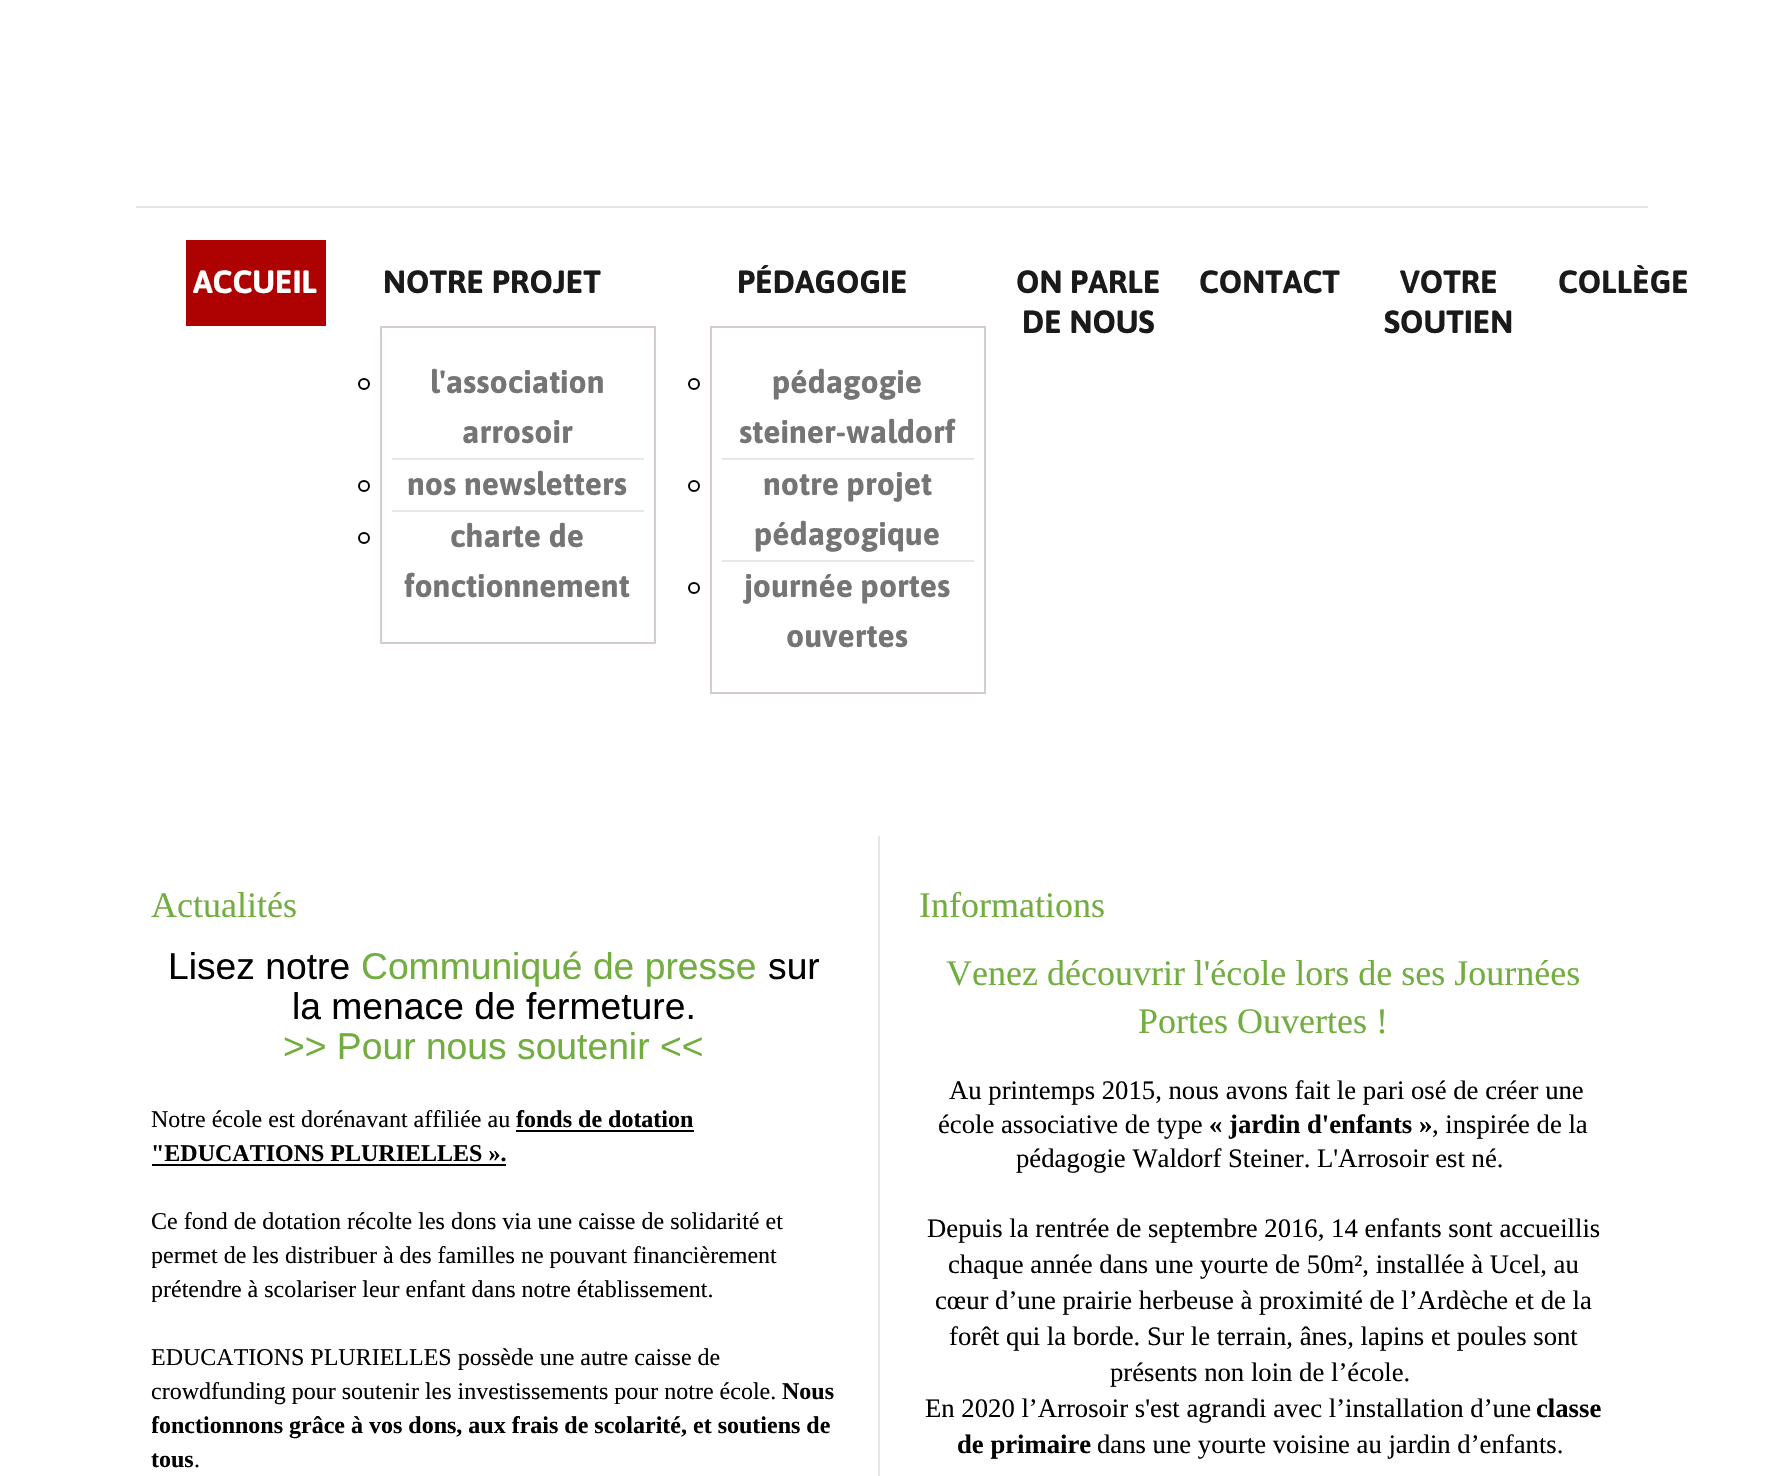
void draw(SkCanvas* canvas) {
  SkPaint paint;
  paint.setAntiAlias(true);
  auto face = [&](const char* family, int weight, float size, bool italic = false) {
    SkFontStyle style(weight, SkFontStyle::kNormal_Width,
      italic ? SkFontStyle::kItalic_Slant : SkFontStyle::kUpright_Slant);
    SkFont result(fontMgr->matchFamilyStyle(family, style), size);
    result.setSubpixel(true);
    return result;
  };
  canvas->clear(0xffffffff);
  paint.setColor(0xffe6e6e6);
  canvas->drawRect(SkRect::MakeXYWH(136, 206, 1512, 2), paint);
  paint.setColor(0xffae0101);
  canvas->drawRect(SkRect::MakeXYWH(186, 240, 140, 86), paint);
  paint.setStroke(true);
  paint.setStrokeWidth(2);
  paint.setColor(0xffd5cccc);
  canvas->drawRect(SkRect::MakeXYWH(381, 327, 274, 316), paint);
  paint.setColor(0xff000000);
  canvas->drawCircle(364, 384, 5, paint);
  paint.setStroke(false);
  paint.setColor(0xffe7e7e7);
  canvas->drawRect(SkRect::MakeXYWH(392, 458, 252, 2), paint);
  paint.setStroke(true);
  paint.setColor(0xff000000);
  canvas->drawCircle(364, 486, 5, paint);
  paint.setStroke(false);
  paint.setColor(0xffe7e7e7);
  canvas->drawRect(SkRect::MakeXYWH(392, 510, 252, 2), paint);
  paint.setStroke(true);
  paint.setColor(0xff000000);
  canvas->drawCircle(364, 538, 5, paint);
  paint.setColor(0xffd5cccc);
  canvas->drawRect(SkRect::MakeXYWH(711, 327, 274, 366), paint);
  paint.setColor(0xff000000);
  canvas->drawCircle(694, 384, 5, paint);
  paint.setStroke(false);
  paint.setColor(0xffe7e7e7);
  canvas->drawRect(SkRect::MakeXYWH(722, 458, 252, 2), paint);
  paint.setStroke(true);
  paint.setColor(0xff000000);
  canvas->drawCircle(694, 486, 5, paint);
  paint.setStroke(false);
  paint.setColor(0xffe7e7e7);
  canvas->drawRect(SkRect::MakeXYWH(722, 560, 252, 2), paint);
  paint.setStroke(true);
  paint.setColor(0xff000000);
  canvas->drawCircle(694, 588, 5, paint);
  paint.setStroke(false);
  {
    const struct { float x, y, w, h; SkColor color; } items[] = {
      {878, 836, 2, 640, 0xffe5e5e5},
      {516, 1130, 178, 2, 0xff000000},
      {152, 1164, 354, 2, 0xff000000},
    };
    for (auto [x, y, w, h, color] : items) {
      paint.setColor(color);
      canvas->drawRect(SkRect::MakeXYWH(x, y, w, h), paint);
    }
  }
  auto f0 = face("Asap", 700, 32);
  paint.setColor(0xffffffff);
  canvas->drawString("ACCUEIL", 193, 293, f0, paint);
  paint.setColor(0xff1a1a1a);
  canvas->drawString("NOTRE PROJET", 383, 293, f0, paint);
  paint.setColor(0xff757575);
  {
    const struct { const char* s; float x, y; } items[] = {
      {"l'association", 430, 393},
      {"arrosoir", 462, 443},
      {"nos newsletters", 407, 495},
      {"charte de", 450, 547},
      {"fonctionnement", 404, 597},
    };
    for (auto [s, x, y] : items) {
      canvas->drawString(s, x, y, f0, paint);
    }
  }
  paint.setColor(0xff1a1a1a);
  canvas->drawString("PÉDAGOGIE", 737, 293, f0, paint);
  paint.setColor(0xff757575);
  {
    const struct { const char* s; float x, y; } items[] = {
      {"pédagogie", 772, 393},
      {"steiner-waldorf", 739, 443},
      {"notre projet", 763, 495},
      {"pédagogique", 754, 545},
      {"journée portes", 744, 597},
      {"ouvertes", 786, 647},
    };
    for (auto [s, x, y] : items) {
      canvas->drawString(s, x, y, f0, paint);
    }
  }
  paint.setColor(0xff1a1a1a);
  {
    const struct { const char* s; float x, y; } items[] = {
      {"ON PARLE", 1016, 293},
      {"DE NOUS", 1022, 333},
      {"CONTACT", 1199, 293},
      {"VOTRE", 1400, 293},
      {"SOUTIEN", 1384, 333},
      {"COLLÈGE", 1558, 293},
    };
    for (auto [s, x, y] : items) {
      canvas->drawString(s, x, y, f0, paint);
    }
  }
  auto f1 = face("Liberation Serif", 400, 36);
  paint.setColor(0xff72ad40);
  canvas->drawString("Actualités", 151, 917, f1, paint);
  auto f2 = face("Liberation Sans", 400, 37.25f);
  paint.setColor(0xff000000);
  canvas->drawString("Lisez notre", 168, 979, f2, paint);
  paint.setColor(0xff72ad40);
  canvas->drawString("Communiqué de presse", 361, 979, f2, paint);
  paint.setColor(0xff000000);
  canvas->drawString("sur", 768, 979, f2, paint);
  canvas->drawString("la menace de fermeture.", 292, 1019, f2, paint);
  paint.setColor(0xff72ad40);
  canvas->drawString(">> Pour nous soutenir <<", 283, 1059, f2, paint);
  auto f3 = face("Liberation Serif", 400, 24);
  paint.setColor(0xff000000);
  canvas->drawString("Notre école est dorénavant affiliée au", 151, 1127, f3, paint);
  auto f4 = face("Liberation Serif", 700, 24);
  canvas->drawString("fonds de dotation", 516, 1127, f4, paint);
  canvas->drawString("\"EDUCATIONS PLURIELLES ».", 151, 1161, f4, paint);
  canvas->drawString("Ce fond de dotation récolte les dons via une caisse de solidarité et", 151, 1229, f3, paint);
  canvas->save();
  canvas->clipRect(SkRect::MakeXYWH(152, 836, 726, 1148));
  canvas->drawString("permet de les distribuer à des familles ne pouvant financièrement", 151, 1263, f3, paint);
  canvas->drawString("prétendre à scolariser leur enfant dans notre établissement.", 151, 1297, f3, paint);
  canvas->restore();
  canvas->drawString("EDUCATIONS PLURIELLES possède une autre caisse de", 151, 1365, f3, paint);
  canvas->drawString("crowdfunding pour soutenir les investissements pour notre école.", 151, 1399, f3, paint);
  canvas->drawString("Nous", 782, 1399, f4, paint);
  canvas->save();
  canvas->clipRect(SkRect::MakeXYWH(152, 836, 726, 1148));
  canvas->drawString("fonctionnons grâce à vos dons, aux frais de scolarité, et soutiens de", 151, 1433, f4, paint);
  canvas->restore();
  canvas->drawString("tous", 151, 1467, f4, paint);
  canvas->drawString(".", 194, 1467, f3, paint);
  paint.setColor(0xff72ad40);
  {
    const struct { const char* s; float x, y; } items[] = {
      {"Informations", 919, 917},
      {"Venez découvrir l'école lors de ses Journées", 946, 985},
      {"Portes Ouvertes !", 1138, 1033},
    };
    for (auto [s, x, y] : items) {
      canvas->drawString(s, x, y, f1, paint);
    }
  }
  auto f5 = face("Liberation Serif", 400, 26.7f);
  paint.setColor(0xff000000);
  canvas->drawString("Au printemps 2015, nous avons fait le pari osé de créer une", 949, 1099, f5, paint);
  canvas->drawString("école associative de type", 938, 1133, f5, paint);
  auto f6 = face("Liberation Serif", 700, 26.7f);
  canvas->drawString("« jardin d'enfants »", 1209, 1133, f6, paint);
  {
    const struct { const char* s; float x, y; } items[] = {
      {", inspirée de la", 1432, 1133},
      {"pédagogie Waldorf Steiner. L'Arrosoir est né.", 1016, 1167},
      {"Depuis la rentrée de septembre 2016, 14 enfants sont accueillis", 927, 1237},
      {"chaque année dans une yourte de 50m², installée à Ucel, au", 948, 1273},
      {"cœur d’une prairie herbeuse à proximité de l’Ardèche et de la", 935, 1309},
      {"forêt qui la borde. Sur le terrain, ânes, lapins et poules sont", 949, 1345},
      {"présents non loin de l’école.", 1110, 1381},
      {"En 2020 l’Arrosoir s'est agrandi avec l’installation d’une", 925, 1417},
    };
    for (auto [s, x, y] : items) {
      canvas->drawString(s, x, y, f5, paint);
    }
  }
  canvas->drawString("classe", 1536, 1417, f6, paint);
  canvas->drawString("de primaire", 957, 1453, f6, paint);
  canvas->drawString("dans une yourte voisine au jardin d’enfants.", 1097, 1453, f5, paint);
}
